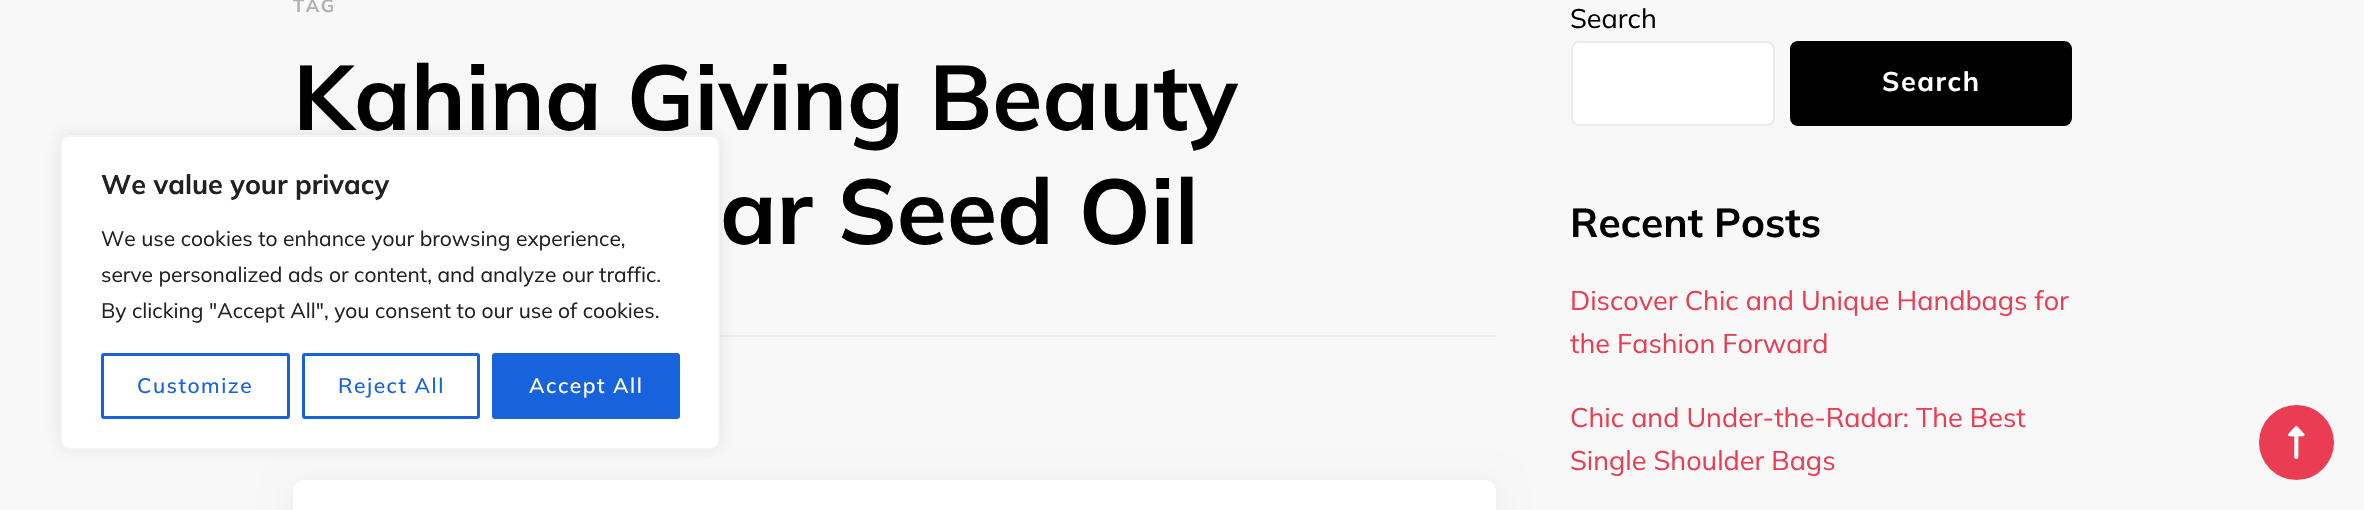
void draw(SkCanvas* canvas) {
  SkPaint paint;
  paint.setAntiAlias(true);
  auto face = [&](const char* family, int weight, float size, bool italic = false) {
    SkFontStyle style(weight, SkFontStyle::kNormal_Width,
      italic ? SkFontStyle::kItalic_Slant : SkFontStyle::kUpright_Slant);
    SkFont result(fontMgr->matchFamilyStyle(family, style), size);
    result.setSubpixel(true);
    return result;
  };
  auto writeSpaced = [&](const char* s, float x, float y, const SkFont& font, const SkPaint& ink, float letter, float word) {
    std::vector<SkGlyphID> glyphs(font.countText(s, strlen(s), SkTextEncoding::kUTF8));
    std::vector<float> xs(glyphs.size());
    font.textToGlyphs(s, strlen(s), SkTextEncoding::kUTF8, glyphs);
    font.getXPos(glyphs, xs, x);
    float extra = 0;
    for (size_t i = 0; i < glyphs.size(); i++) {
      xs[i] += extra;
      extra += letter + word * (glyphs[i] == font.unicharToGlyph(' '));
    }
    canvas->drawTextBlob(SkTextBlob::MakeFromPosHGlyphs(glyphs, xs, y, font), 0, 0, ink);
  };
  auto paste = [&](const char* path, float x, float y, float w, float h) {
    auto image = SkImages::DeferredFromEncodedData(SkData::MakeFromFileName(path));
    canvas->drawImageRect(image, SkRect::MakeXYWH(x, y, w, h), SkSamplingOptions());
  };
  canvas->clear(0xfff8f8f8);
  paint.setColor(0xffebebeb);
  canvas->drawRect(SkRect::MakeXYWH(720, 335, 776, 2), paint);
  paint.setColor(0x0d000000);
  paint.setMaskFilter(SkMaskFilter::MakeBlur(kNormal_SkBlurStyle, 15));
  canvas->drawRoundRect(SkRect::MakeXYWH(293, 483, 1203, 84), 12, 12, paint);
  paint.setMaskFilter(nullptr);
  paint.setColor(0xffffffff);
  canvas->drawRoundRect(SkRect::MakeXYWH(293, 480, 1203, 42), 12, 12, paint);
  paste("img/1.png", 293, 484, 3, 4);
  canvas->drawRoundRect(SkRect::MakeXYWH(1572, 42, 202, 83), 7, 7, paint);
  paint.setStroke(true);
  paint.setStrokeWidth(2);
  paint.setColor(0xffebebeb);
  canvas->drawRoundRect(SkRect::MakeXYWH(1572, 42, 202, 83), 7, 7, paint);
  paint.setStroke(false);
  paint.setColor(0xff000000);
  canvas->drawRoundRect(SkRect::MakeXYWH(1791, 42, 280, 83), 7, 7, paint);
  paint.setStroke(true);
  canvas->drawRoundRect(SkRect::MakeXYWH(1791, 42, 280, 83), 7, 7, paint);
  paint.setStroke(false);
  paint.setColor(0xffea3c53);
  canvas->drawCircle(2296.5f, 442.5f, 37.5f, paint);
  paste("img/2.png", 2288, 426, 17, 33);
  paint.setColor(0x4dacabab);
  paint.setMaskFilter(SkMaskFilter::MakeBlur(kNormal_SkBlurStyle, 7.5f));
  canvas->drawRoundRect(SkRect::MakeXYWH(60, 134, 660, 315), 9, 9, paint);
  paint.setMaskFilter(nullptr);
  auto f0 = face("Mulish", 700, 18);
  paint.setColor(0xffb1b1b2);
  writeSpaced("TAG", 293, 12, f0, paint, 1.5f, 0);
  auto f1 = face("Mulish", 700, 91.5f);
  paint.setColor(0xff000000);
  canvas->drawString("Kahina Giving Beauty", 293, 130, f1, paint);
  canvas->drawString("ar Seed Oil", 720, 244, f1, paint);
  auto f2 = face("Mulish", 400, 27);
  canvas->drawString("Search", 1570, 28, f2, paint);
  auto f3 = face("Mulish", 700, 27);
  paint.setColor(0xffffffff);
  writeSpaced("Search", 1882, 91, f3, paint, 1.5f, 0);
  auto f4 = face("Mulish", 700, 40.5f);
  paint.setColor(0xff000000);
  canvas->drawString("Recent Posts", 1570, 237, f4, paint);
  paint.setColor(0xffea3c53);
  {
    const struct { const char* s; float x, y; } items[] = {
      {"Discover Chic and Unique Handbags for", 1570, 310},
      {"the Fashion Forward", 1570, 353},
      {"Chic and Under-the-Radar: The Best", 1570, 427},
      {"Single Shoulder Bags", 1570, 470},
    };
    for (auto [s, x, y] : items) {
      canvas->drawString(s, x, y, f2, paint);
    }
  }
  paint.setColor(0xffffffff);
  canvas->drawRoundRect(SkRect::MakeXYWH(61, 136, 658, 313), 8, 8, paint);
  paint.setStroke(true);
  paint.setColor(0xfff4f4f4);
  canvas->drawRoundRect(SkRect::MakeXYWH(61, 136, 658, 313), 8, 8, paint);
  paint.setStroke(false);
  paint.setColor(0xff212121);
  canvas->drawString("We value your privacy", 101, 194, f3, paint);
  auto f5 = face("Mulish", 400, 21);
  {
    const struct { const char* s; float x, y; } items[] = {
      {"We use cookies to enhance your browsing experience,", 101, 246},
      {"serve personalized ads or content, and analyze our traffic.", 101, 282},
      {"By clicking \"Accept All\", you consent to our use of cookies.", 101, 318},
    };
    for (auto [s, x, y] : items) {
      canvas->drawString(s, x, y, f5, paint);
    }
  }
  paint.setStroke(true);
  paint.setStrokeWidth(3);
  paint.setColor(0xff1863dc);
  canvas->drawRoundRect(SkRect::MakeXYWH(102.5f, 354.5f, 186, 63), 1.5f, 1.5f, paint);
  auto f6 = face("Mulish", 500, 21);
  paint.setStroke(false);
  writeSpaced("Customize", 137, 393, f6, paint, 1.5f, 0);
  paint.setStroke(true);
  canvas->drawRoundRect(SkRect::MakeXYWH(303.5f, 354.5f, 175, 63), 1.5f, 1.5f, paint);
  paint.setStroke(false);
  writeSpaced("Reject All", 338, 393, f6, paint, 1.5f, 0);
  canvas->drawRoundRect(SkRect::MakeXYWH(493.5f, 354.5f, 185, 63), 1.5f, 1.5f, paint);
  paint.setStroke(true);
  canvas->drawRoundRect(SkRect::MakeXYWH(493.5f, 354.5f, 185, 63), 1.5f, 1.5f, paint);
  paint.setStroke(false);
  paint.setColor(0xffffffff);
  writeSpaced("Accept All", 529, 393, f6, paint, 1.5f, 0);
}
